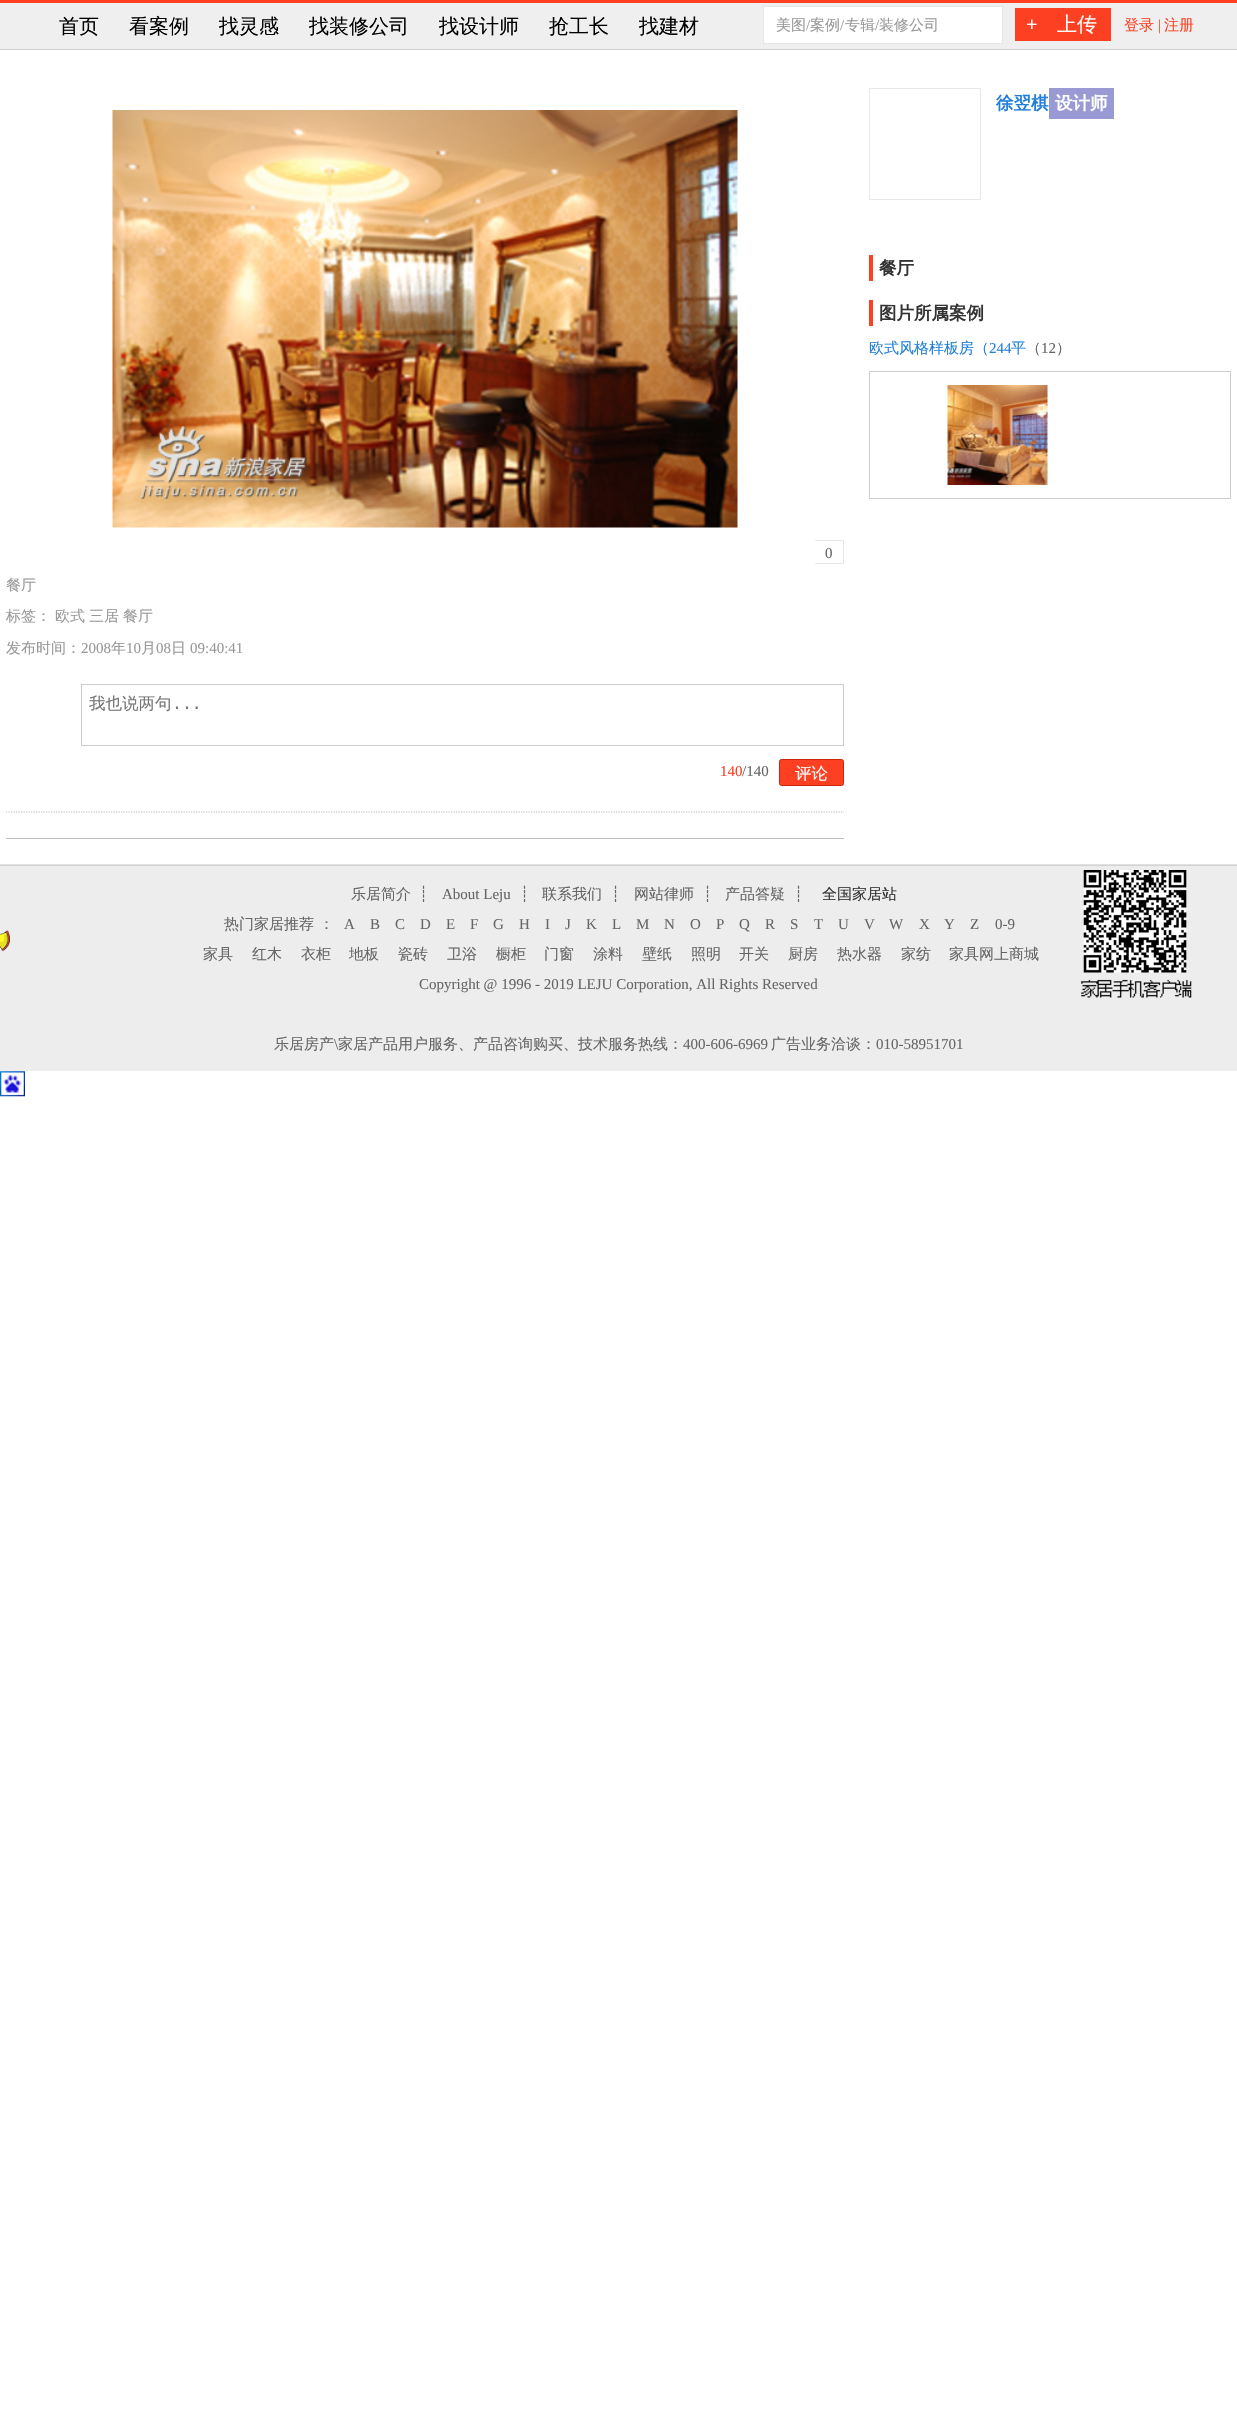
void draw(SkCanvas* canvas) {
  SkPaint paint;
  paint.setAntiAlias(true);
  auto face = [&](const char* family, int weight, float size, bool italic = false) {
    SkFontStyle style(weight, SkFontStyle::kNormal_Width,
      italic ? SkFontStyle::kItalic_Slant : SkFontStyle::kUpright_Slant);
    SkFont result(fontMgr->matchFamilyStyle(family, style), size);
    result.setSubpixel(true);
    return result;
  };
  auto paste = [&](const char* path, float x, float y, float w, float h) {
    auto image = SkImages::DeferredFromEncodedData(SkData::MakeFromFileName(path));
    canvas->drawImageRect(image, SkRect::MakeXYWH(x, y, w, h), SkSamplingOptions());
  };
  auto shape = [&](const char* data, bool evenOdd = false) {
    SkPath result = *SkParsePath::FromSVGString(data);
    if (evenOdd) result.setFillType(SkPathFillType::kEvenOdd);
    return result;
  };
  canvas->clear(0xffffffff);
  {
    const struct { float x, y, w, h; SkColor color; } items[] = {
      {0, 3, 1237, 46, 0xffefefef},
      {0, 0, 1237, 3, 0xfffd4022},
      {0, 49, 1237, 1, 0xffd2d2d2},
    };
    for (auto [x, y, w, h, color] : items) {
      paint.setColor(color);
      canvas->drawRect(SkRect::MakeXYWH(x, y, w, h), paint);
    }
  }
  paint.setColor(0xffffffff);
  canvas->drawRect(SkRect::MakeXYWH(763.5f, 6.5f, 239, 37), paint);
  paint.setStroke(true);
  paint.setStrokeWidth(1);
  paint.setColor(0xffe3e5e6);
  canvas->drawRect(SkRect::MakeXYWH(763.5f, 6.5f, 239, 37), paint);
  paint.setStroke(false);
  paint.setColor(0xfffd4022);
  canvas->drawRect(SkRect::MakeXYWH(1015, 8, 96, 33), paint);
  paint.setStroke(true);
  paint.setColor(0xffe8e8e8);
  canvas->drawRect(SkRect::MakeXYWH(869.5f, 88.5f, 111, 111), paint);
  paint.setStroke(false);
  {
    const struct { float x, y, w, h; SkColor color; } items[] = {
      {1049, 88, 65, 31, 0xff999ad3},
      {869, 255, 4, 26, 0xfffd4022},
      {869, 300, 4, 26, 0xfffd4022},
    };
    for (auto [x, y, w, h, color] : items) {
      paint.setColor(color);
      canvas->drawRect(SkRect::MakeXYWH(x, y, w, h), paint);
    }
  }
  paint.setStroke(true);
  paint.setColor(0xffcccccc);
  canvas->drawRect(SkRect::MakeXYWH(869.5f, 371.5f, 361, 127), paint);
  paste("img/1.png", 947, 385, 101, 100);
  paste("img/2.png", 112, 110, 626, 418);
  paint.setStroke(false);
  {
    const struct { float x, y, w, h; SkColor color; } items[] = {
      {815, 540, 29, 1, 0xffe8e8e8},
      {843, 540, 1, 24, 0xffe8e8e8},
      {815, 563, 29, 1, 0xffe8e8e8},
    };
    for (auto [x, y, w, h, color] : items) {
      paint.setColor(color);
      canvas->drawRect(SkRect::MakeXYWH(x, y, w, h), paint);
    }
  }
  paint.setStroke(true);
  paint.setColor(0xffcccccc);
  canvas->drawRect(SkRect::MakeXYWH(81.5f, 684.5f, 762, 61), paint);
  paint.setStroke(false);
  paint.setColor(0xfffd4022);
  canvas->drawRoundRect(SkRect::MakeXYWH(779.5f, 759.5f, 64, 26), 2, 2, paint);
  paint.setStroke(true);
  paint.setColor(0xffcb260c);
  canvas->drawRoundRect(SkRect::MakeXYWH(779.5f, 759.5f, 64, 26), 2, 2, paint);
  paint.setStrokeWidth(1.2f);
  paint.setColor(0xffbcbcbc);
  paint.setPathEffect(SkDashPathEffect::Make({{1.25f, 1.25f}}, 0));
  canvas->drawPath(shape("M6 812H844"), paint);
  paint.setPathEffect(nullptr);
  paint.setStroke(false);
  {
    const struct { float x, y, w, h; SkColor color; } items[] = {
      {6, 838, 838, 1, 0xffbcbcbc},
      {0, 864, 1237, 1, 0xffe0e0e0},
      {0, 866, 1237, 205, 0xffededed},
      {0, 865, 1237, 1, 0xffd2d2d2},
    };
    for (auto [x, y, w, h, color] : items) {
      paint.setColor(color);
      canvas->drawRect(SkRect::MakeXYWH(x, y, w, h), paint);
    }
  }
  paste("img/3.png", 1081, 870, 111, 128);
  paste("img/4.png", 0, 930, 10, 22);
  paste("img/5.png", 0, 1071, 25, 26);
  auto f0 = face("WenQuanYi Zen Hei", 500, 20);
  paint.setColor(0xff010000);
  {
    const struct { const char* s; float x, y; } items[] = {
      {"首页", 59, 33},
      {"看案例", 129, 33},
      {"找灵感", 219, 33},
      {"找装修公司", 309, 33},
      {"找设计师", 439, 33},
      {"抢工长", 549, 33},
      {"找建材", 639, 33},
    };
    for (auto [s, x, y] : items) {
      canvas->drawString(s, x, y, f0, paint);
    }
  }
  auto f1 = face("WenQuanYi Zen Hei", 500, 15);
  paint.setColor(0xff999999);
  canvas->drawString("美图", 776, 30, f1, paint);
  auto f2 = face("Liberation Serif", 400, 15);
  canvas->drawString("/", 806, 30, f2, paint);
  canvas->drawString("案例", 810, 30, f1, paint);
  canvas->drawString("/", 840, 30, f2, paint);
  canvas->drawString("专辑", 845, 30, f1, paint);
  canvas->drawString("/", 875, 30, f2, paint);
  canvas->drawString("装修公司", 879, 30, f1, paint);
  auto f3 = face("Liberation Serif", 700, 20);
  paint.setColor(0xffffffff);
  canvas->drawString("+", 1026, 31, f3, paint);
  canvas->drawString("上传", 1057, 31, f0, paint);
  paint.setColor(0xfffd4022);
  canvas->drawString("登录", 1124, 30, f1, paint);
  canvas->drawString("|", 1158, 30, f2, paint);
  canvas->drawString("注册", 1164, 30, f1, paint);
  auto f4 = face("WenQuanYi Zen Hei", 700, 17.5f);
  paint.setColor(0xff217fd9);
  canvas->drawString("徐翌棋", 996, 109, f4, paint);
  paint.setColor(0xffffffff);
  canvas->drawString("设计师", 1055, 109, f4, paint);
  paint.setColor(0xff333333);
  canvas->drawString("餐厅", 879, 274, f4, paint);
  canvas->drawString("图片所属案例", 879, 319, f4, paint);
  paint.setColor(0xff217fd9);
  canvas->drawString("欧式风格样板房（", 869, 353, f1, paint);
  canvas->drawString("244", 989, 353, f2, paint);
  canvas->drawString("平", 1011, 353, f1, paint);
  paint.setColor(0xff666666);
  canvas->drawString("（", 1026, 353, f1, paint);
  canvas->drawString("12", 1041, 353, f2, paint);
  canvas->drawString("）", 1056, 353, f1, paint);
  canvas->drawString("0", 825, 558, f2, paint);
  paint.setColor(0xff999999);
  {
    const struct { const char* s; float x, y; } items[] = {
      {"餐厅", 6, 590},
      {"标签：", 6, 621},
      {"欧式", 55, 621},
      {"三居", 89, 621},
      {"餐厅", 123, 621},
      {"发布时间：", 6, 653},
    };
    for (auto [s, x, y] : items) {
      canvas->drawString(s, x, y, f1, paint);
    }
  }
  canvas->drawString("2008", 81, 653, f2, paint);
  canvas->drawString("年", 111, 653, f1, paint);
  canvas->drawString("10", 126, 653, f2, paint);
  canvas->drawString("月", 141, 653, f1, paint);
  canvas->drawString("08", 156, 653, f2, paint);
  canvas->drawString("日", 171, 653, f1, paint);
  canvas->drawString("09:40:41", 190, 653, f2, paint);
  auto f5 = face("WenQuanYi Zen Hei", 500, 16.5f);
  paint.setColor(0xff757575);
  canvas->drawString("我也说两句", 89, 709, f5, paint);
  auto f6 = face("DejaVu Sans Mono", 400, 16.5f);
  canvas->drawString("...", 172, 709, f6, paint);
  paint.setColor(0xfffd4022);
  canvas->drawString("140", 720, 776, f2, paint);
  paint.setColor(0xff666666);
  canvas->drawString("/140", 742, 776, f2, paint);
  paint.setColor(0xffffffff);
  canvas->drawString("评论", 795, 779, f5, paint);
  paint.setColor(0xff666666);
  canvas->drawString("乐居简介", 351, 899, f1, paint);
  auto f7 = face("DejaVu Sans", 400, 15);
  canvas->drawString("┊", 419, 899, f7, paint);
  canvas->drawString("About Leju", 442, 899, f2, paint);
  canvas->drawString("┊", 520, 899, f7, paint);
  canvas->drawString("联系我们", 542, 899, f1, paint);
  canvas->drawString("┊", 611, 899, f7, paint);
  canvas->drawString("网站律师", 634, 899, f1, paint);
  canvas->drawString("┊", 703, 899, f7, paint);
  canvas->drawString("产品答疑", 725, 899, f1, paint);
  canvas->drawString("┊", 794, 899, f7, paint);
  paint.setColor(0xff333333);
  canvas->drawString("全国家居站", 822, 899, f1, paint);
  paint.setColor(0xff666666);
  canvas->drawString("热门家居推荐", 224, 929, f1, paint);
  canvas->drawString("：", 319, 929, f1, paint);
  {
    const struct { const char* s; float x, y; } items[] = {
      {"A", 344, 929},
      {"B", 370, 929},
      {"C", 395, 929},
      {"D", 420, 929},
      {"E", 446, 929},
      {"F", 470, 929},
      {"G", 493, 929},
      {"H", 519, 929},
      {"I", 545, 929},
      {"J", 565, 929},
      {"K", 586, 929},
      {"L", 612, 929},
      {"M", 636, 929},
      {"N", 664, 929},
      {"O", 690, 929},
      {"P", 716, 929},
      {"Q", 739, 929},
      {"R", 765, 929},
      {"S", 790, 929},
      {"T", 814, 929},
      {"U", 838, 929},
      {"V", 864, 929},
      {"W", 889, 929},
      {"X", 919, 929},
      {"Y", 944, 929},
      {"Z", 970, 929},
      {"0-9", 995, 929},
    };
    for (auto [s, x, y] : items) {
      canvas->drawString(s, x, y, f2, paint);
    }
  }
  {
    const struct { const char* s; float x, y; } items[] = {
      {"家具", 203, 959},
      {"红木", 252, 959},
      {"衣柜", 301, 959},
      {"地板", 349, 959},
      {"瓷砖", 398, 959},
      {"卫浴", 447, 959},
      {"橱柜", 496, 959},
      {"门窗", 544, 959},
      {"涂料", 593, 959},
      {"壁纸", 642, 959},
      {"照明", 691, 959},
      {"开关", 739, 959},
      {"厨房", 788, 959},
      {"热水器", 837, 959},
      {"家纺", 901, 959},
      {"家具网上商城", 949, 959},
    };
    for (auto [s, x, y] : items) {
      canvas->drawString(s, x, y, f1, paint);
    }
  }
  canvas->drawString("Copyright @ 1996 - 2019 LEJU Corporation, All Rights Reserved", 419, 989, f2, paint);
  canvas->drawString("乐居房产", 274, 1049, f1, paint);
  canvas->drawString("\\", 334, 1049, f2, paint);
  canvas->drawString("家居产品用户服务、产品咨询购买、技术服务热线：", 338, 1049, f1, paint);
  canvas->drawString("400-606-6969", 683, 1049, f2, paint);
  canvas->drawString("广告业务洽谈：", 771, 1049, f1, paint);
  canvas->drawString("010-58951701", 876, 1049, f2, paint);
}
